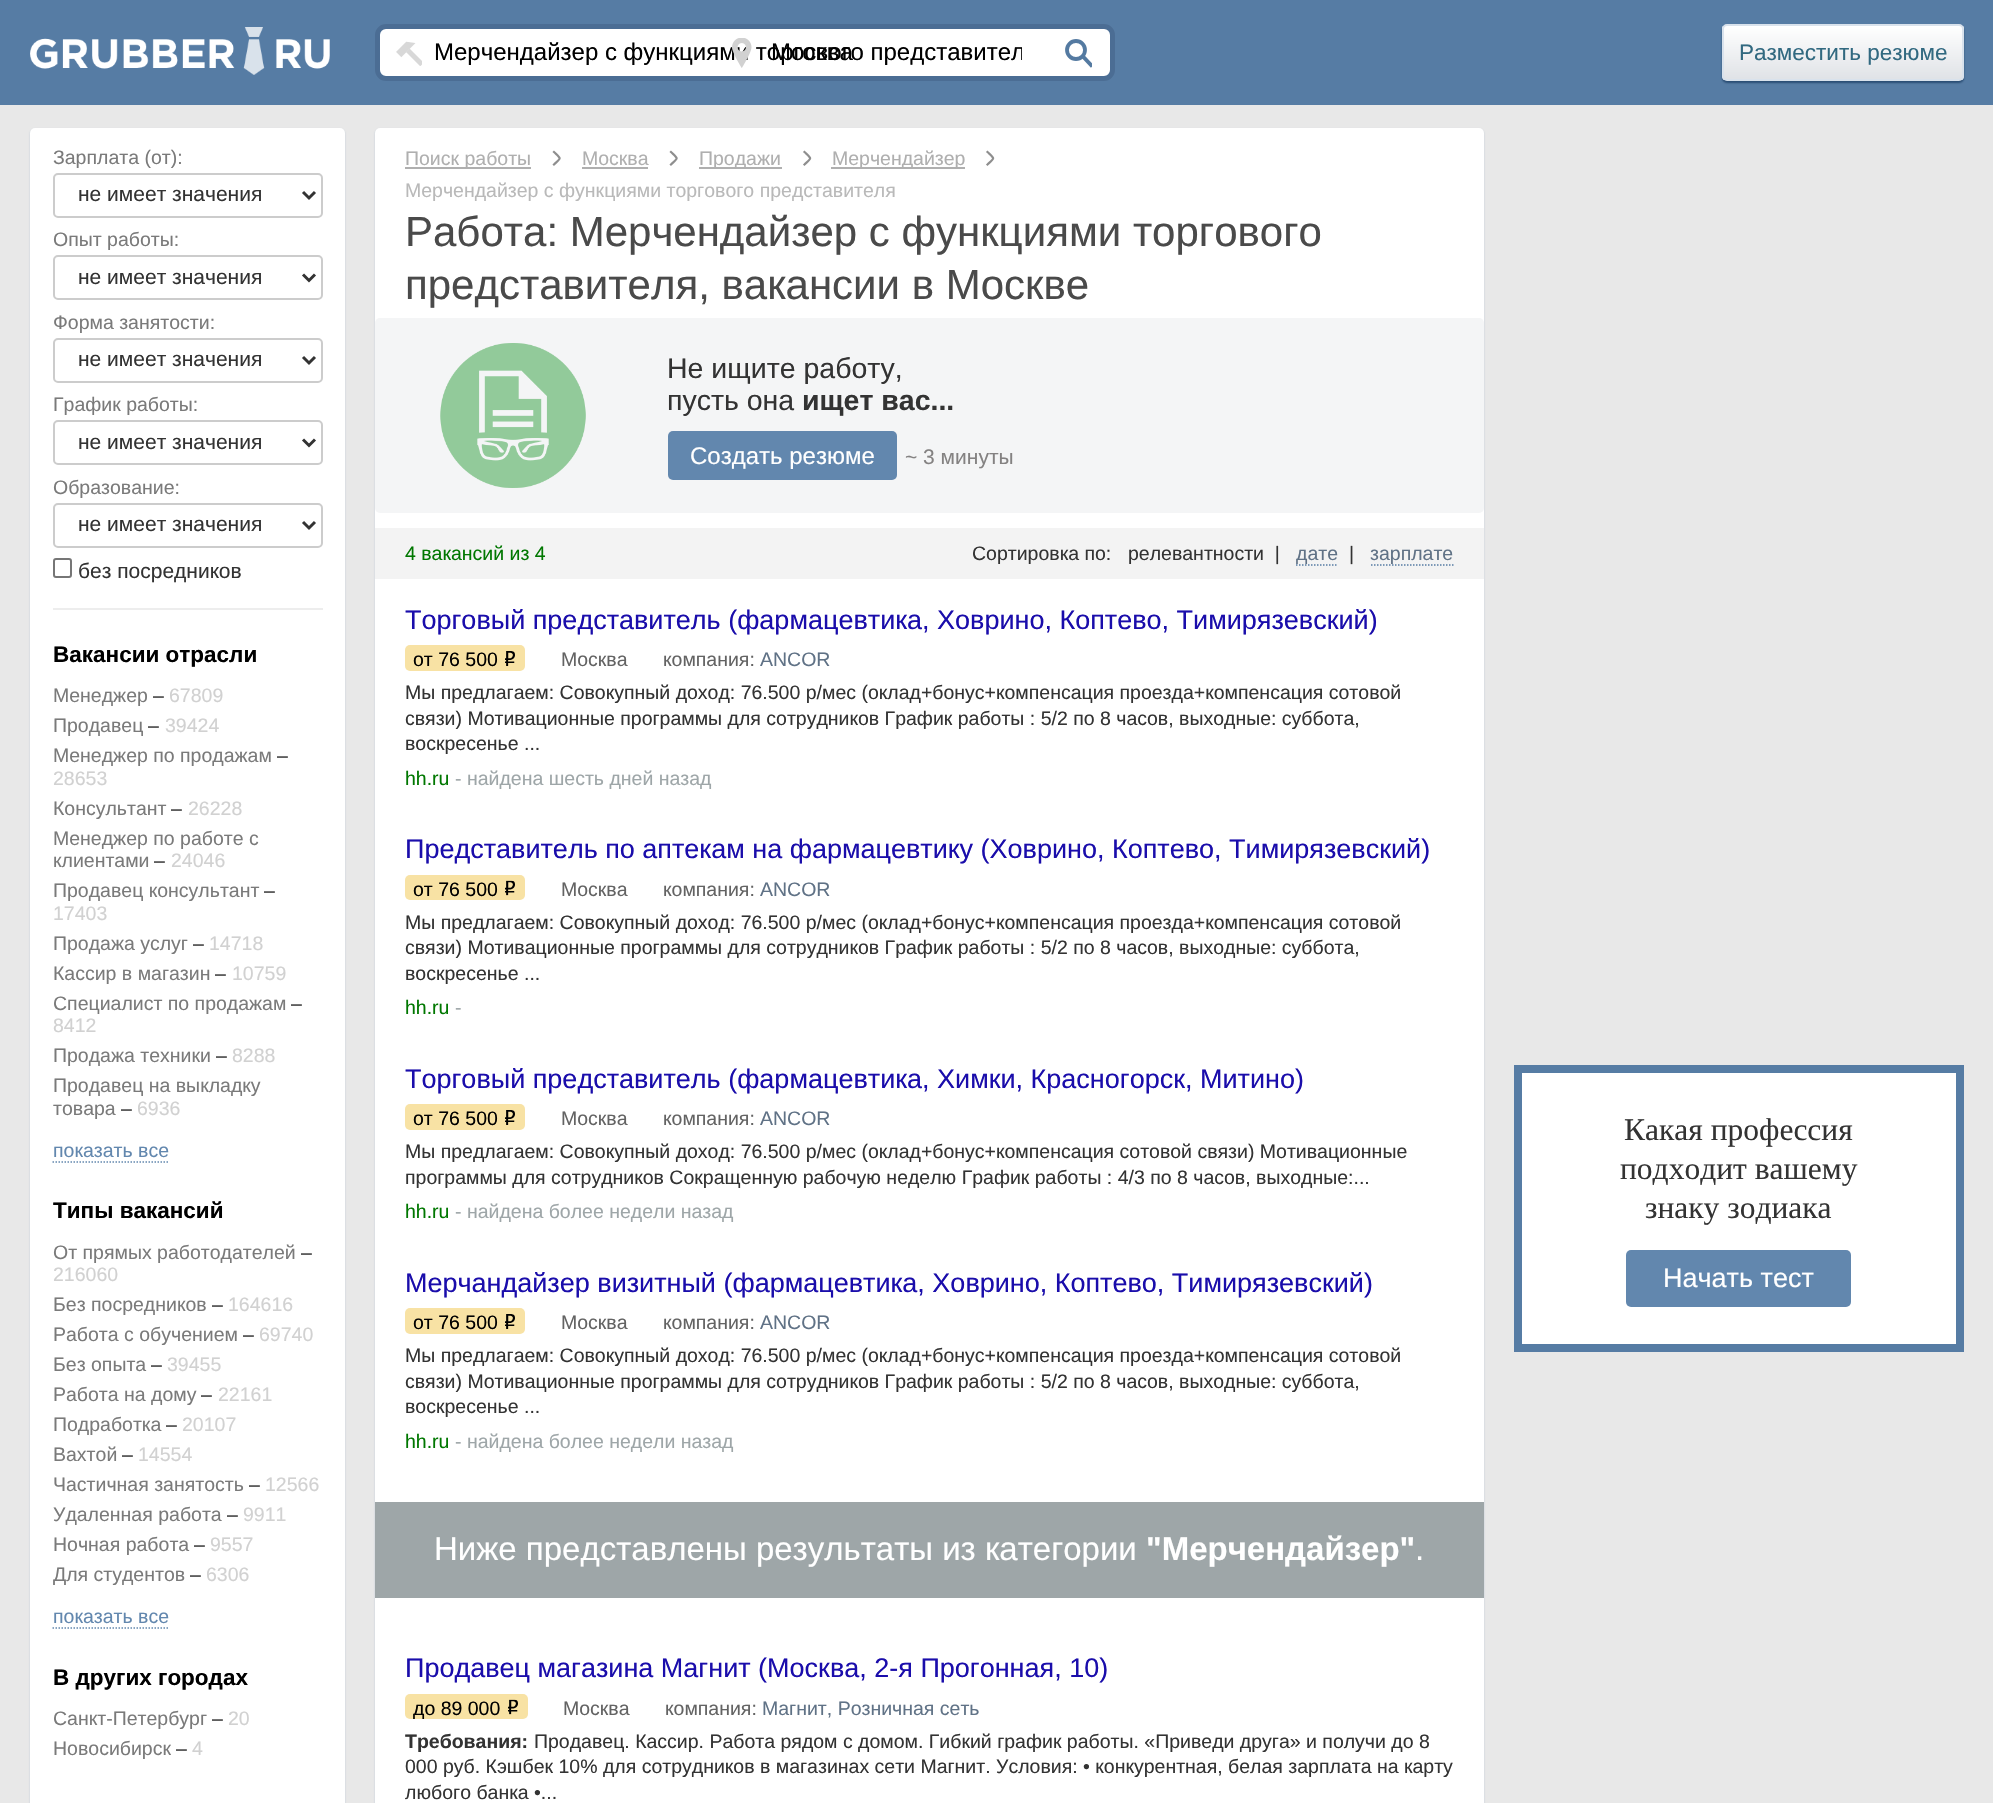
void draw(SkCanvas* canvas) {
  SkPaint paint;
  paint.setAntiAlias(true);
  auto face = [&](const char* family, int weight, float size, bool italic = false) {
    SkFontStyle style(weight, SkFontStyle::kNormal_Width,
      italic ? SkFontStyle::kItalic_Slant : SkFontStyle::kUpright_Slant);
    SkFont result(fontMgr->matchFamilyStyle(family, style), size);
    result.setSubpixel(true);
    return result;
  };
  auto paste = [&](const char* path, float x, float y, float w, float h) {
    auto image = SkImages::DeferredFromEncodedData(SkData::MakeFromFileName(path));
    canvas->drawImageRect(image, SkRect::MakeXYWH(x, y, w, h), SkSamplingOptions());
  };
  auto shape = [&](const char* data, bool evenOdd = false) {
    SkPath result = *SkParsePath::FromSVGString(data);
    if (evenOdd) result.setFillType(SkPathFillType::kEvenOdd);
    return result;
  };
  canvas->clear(0xffe8e8e8);
  paint.setColor(0xff567ca4);
  canvas->drawRect(SkRect::MakeXYWH(0, 0, 1993, 105), paint);
  paste("img/1.png", 30, 27, 300, 48);
  paint.setColor(0xffffffff);
  canvas->drawRoundRect(SkRect::MakeXYWH(377.5f, 26.5f, 735, 52), 8.5f, 8.5f, paint);
  paint.setStroke(true);
  paint.setStrokeWidth(5);
  paint.setColor(0xff4b6d94);
  canvas->drawRoundRect(SkRect::MakeXYWH(377.5f, 26.5f, 735, 52), 8.5f, 8.5f, paint);
  paste("img/2.png", 396, 41, 26, 25);
  paint.setStrokeWidth(3.8f);
  paint.setColor(0xff547aa1);
  canvas->drawCircle(1076, 50, 9, paint);
  canvas->save();
  canvas->clipRect(SkRect::MakeXYWH(1065, 39, 27, 30));
  paint.setStrokeCap(SkPaint::kSquare_Cap);
  canvas->drawPath(shape("M1084 57.5L1091 65"), paint);
  canvas->restore();
  paint.setStroke(false);
  paint.setColor(0xff294d74);
  paint.setMaskFilter(SkMaskFilter::MakeBlur(kNormal_SkBlurStyle, 1));
  canvas->drawRoundRect(SkRect::MakeXYWH(1722, 26, 242, 57), 5, 5, paint);
  paint.setMaskFilter(nullptr);
  canvas->save();
  canvas->clipPath(shape("M1727 24H1959C1962 24 1964 26 1964 29V76C1964 79 1962 81 1959 81H1727C1724 81 1722 79 1722 76V29C1722 26 1724 24 1727 24Z"), true);
  {
    const SkColor colors[] = {0xffdfe2e6, 0xffffffff};
    const float stops[] = {0, 1};
    const SkPoint ends[] = {{1843, 80}, {1843, 26}};
    paint.setShader(SkGradientShader::MakeLinear(ends, colors, stops, 2, SkTileMode::kClamp));
    paint.setAlpha(255);
  }
  canvas->drawRect(SkRect::MakeXYWH(1722, 26, 242, 54), paint);
  canvas->restore();
  paint.setStroke(true);
  paint.setStrokeWidth(2);
  paint.setStrokeCap(SkPaint::kButt_Cap);
  paint.setShader(nullptr);
  paint.setColor(0xffd9e2ec);
  canvas->drawRoundRect(SkRect::MakeXYWH(1723, 25, 240, 55), 4, 4, paint);
  paint.setStroke(false);
  paint.setColor(0x4d567ca4);
  paint.setMaskFilter(SkMaskFilter::MakeBlur(kNormal_SkBlurStyle, 1));
  canvas->drawRoundRect(SkRect::MakeXYWH(30, 129, 315, 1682), 5, 5, paint);
  paint.setMaskFilter(nullptr);
  paint.setColor(0xffffffff);
  canvas->drawRoundRect(SkRect::MakeXYWH(30, 128, 315, 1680), 5, 5, paint);
  paint.setColor(0xffededed);
  canvas->drawRect(SkRect::MakeXYWH(53, 608, 270, 2), paint);
  paint.setStroke(true);
  paint.setColor(0xffcccccc);
  canvas->drawRoundRect(SkRect::MakeXYWH(54, 174, 268, 43), 4, 4, paint);
  paint.setStrokeWidth(3);
  paint.setColor(0xff333333);
  canvas->drawPath(shape("M303 192L309 198L315 192"), paint);
  paint.setStrokeWidth(2);
  paint.setColor(0xffcccccc);
  canvas->drawRoundRect(SkRect::MakeXYWH(54, 256, 268, 43), 4, 4, paint);
  paint.setStrokeWidth(3);
  paint.setColor(0xff333333);
  canvas->drawPath(shape("M303 274.5L309 280.5L315 274.5"), paint);
  paint.setStrokeWidth(2);
  paint.setColor(0xffcccccc);
  canvas->drawRoundRect(SkRect::MakeXYWH(54, 339, 268, 43), 4, 4, paint);
  paint.setStrokeWidth(3);
  paint.setColor(0xff333333);
  canvas->drawPath(shape("M303 357L309 363L315 357"), paint);
  paint.setStrokeWidth(2);
  paint.setColor(0xffcccccc);
  canvas->drawRoundRect(SkRect::MakeXYWH(54, 421, 268, 43), 4, 4, paint);
  paint.setStrokeWidth(3);
  paint.setColor(0xff333333);
  canvas->drawPath(shape("M303 439.5L309 445.5L315 439.5"), paint);
  paint.setStrokeWidth(2);
  paint.setColor(0xffcccccc);
  canvas->drawRoundRect(SkRect::MakeXYWH(54, 504, 268, 43), 4, 4, paint);
  paint.setStrokeWidth(3);
  paint.setColor(0xff333333);
  canvas->drawPath(shape("M303 522L309 528L315 522"), paint);
  paint.setStrokeWidth(2);
  paint.setColor(0xff767676);
  canvas->drawRoundRect(SkRect::MakeXYWH(54, 559, 17, 18), 2, 2, paint);
  paint.setStrokeWidth(1.5f);
  paint.setColor(0xff6287ae);
  paint.setPathEffect(SkDashPathEffect::Make({{1.5f, 1.5f}}, 0));
  canvas->drawPath(shape("M52.5 1162H168"), paint);
  paint.setPathEffect(nullptr);
  paint.setPathEffect(SkDashPathEffect::Make({{1.5f, 1.5f}}, 0));
  canvas->drawPath(shape("M52.5 1628H168"), paint);
  paint.setPathEffect(nullptr);
  paint.setStroke(false);
  paint.setColor(0x4d567ca4);
  paint.setMaskFilter(SkMaskFilter::MakeBlur(kNormal_SkBlurStyle, 1));
  canvas->drawRoundRect(SkRect::MakeXYWH(375, 129, 1109, 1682), 5, 5, paint);
  paint.setMaskFilter(nullptr);
  paint.setColor(0xffffffff);
  canvas->drawRoundRect(SkRect::MakeXYWH(375, 128, 1109, 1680), 5, 5, paint);
  paint.setColor(0xffafafaf);
  canvas->drawRect(SkRect::MakeXYWH(405, 167, 126, 2), paint);
  paint.setStroke(true);
  paint.setStrokeWidth(2.2f);
  paint.setStrokeCap(SkPaint::kSquare_Cap);
  paint.setColor(0xff8e8e8e);
  canvas->drawPath(shape("M554 152C561.5 159 561.5 157.5 554 164.5"), paint);
  paint.setStroke(false);
  paint.setColor(0xffafafaf);
  canvas->drawRect(SkRect::MakeXYWH(582, 167, 66, 2), paint);
  paint.setStroke(true);
  paint.setColor(0xff8e8e8e);
  canvas->drawPath(shape("M671 152C678.5 159 678.5 157.5 671 164.5"), paint);
  paint.setStroke(false);
  paint.setColor(0xffafafaf);
  canvas->drawRect(SkRect::MakeXYWH(699, 167, 83, 2), paint);
  paint.setStroke(true);
  paint.setColor(0xff8e8e8e);
  canvas->drawPath(shape("M804.5 152C812 159 812 157.5 804.5 164.5"), paint);
  paint.setStroke(false);
  paint.setColor(0xffafafaf);
  canvas->drawRect(SkRect::MakeXYWH(831, 167, 134, 2), paint);
  paint.setStroke(true);
  paint.setColor(0xff8e8e8e);
  canvas->drawPath(shape("M987.5 152C995 159 995 157.5 987.5 164.5"), paint);
  paint.setStroke(false);
  paint.setColor(0xfff4f5f6);
  canvas->drawRoundRect(SkRect::MakeXYWH(375, 318, 1109, 195), 5, 5, paint);
  paste("img/4.png", 440, 343, 146, 145);
  paint.setColor(0xff6287ae);
  canvas->drawRoundRect(SkRect::MakeXYWH(668, 431, 229, 49), 5, 5, paint);
  paint.setColor(0xfff3f3f3);
  canvas->drawRect(SkRect::MakeXYWH(375, 528, 1109, 51), paint);
  paint.setStroke(true);
  paint.setStrokeWidth(1.5f);
  paint.setStrokeCap(SkPaint::kButt_Cap);
  paint.setColor(0xff567ca4);
  paint.setPathEffect(SkDashPathEffect::Make({{1.5f, 1.5f}}, 0));
  canvas->drawPath(shape("M1296 565H1338"), paint);
  paint.setPathEffect(nullptr);
  paint.setPathEffect(SkDashPathEffect::Make({{1.5f, 1.5f}}, 0));
  canvas->drawPath(shape("M1371 565H1453.5"), paint);
  paint.setPathEffect(nullptr);
  paint.setStroke(false);
  paint.setColor(0xfff8e2a4);
  canvas->drawRoundRect(SkRect::MakeXYWH(405, 645, 120, 26), 5, 5, paint);
  paste("img/5.png", 505, 651, 10, 15);
  canvas->drawRoundRect(SkRect::MakeXYWH(405, 875, 120, 25), 5, 5, paint);
  paste("img/6.png", 505, 880, 10, 16);
  canvas->drawRoundRect(SkRect::MakeXYWH(405, 1104, 120, 26), 5, 5, paint);
  paste("img/5.png", 505, 1110, 10, 15);
  canvas->drawRoundRect(SkRect::MakeXYWH(405, 1308, 120, 26), 5, 5, paint);
  paste("img/5.png", 505, 1314, 10, 15);
  paint.setColor(0xff9ea6a8);
  canvas->drawRect(SkRect::MakeXYWH(375, 1502, 1109, 96), paint);
  paint.setColor(0xfff8e2a4);
  canvas->drawRoundRect(SkRect::MakeXYWH(405, 1694, 123, 25), 5, 5, paint);
  paste("img/7.png", 508, 1699, 10, 16);
  paint.setColor(0xffffffff);
  canvas->drawRect(SkRect::MakeXYWH(1518, 1069, 442, 279), paint);
  paint.setStroke(true);
  paint.setStrokeWidth(8);
  paint.setColor(0xff567ca4);
  canvas->drawRect(SkRect::MakeXYWH(1518, 1069, 442, 279), paint);
  paint.setStroke(false);
  paint.setColor(0xff6287ae);
  canvas->drawRoundRect(SkRect::MakeXYWH(1626, 1250, 225, 57), 5, 5, paint);
  canvas->save();
  canvas->clipRect(SkRect::MakeXYWH(434, 39, 588, 27));
  auto f0 = face("Liberation Sans", 400, 24);
  paint.setColor(0xff000000);
  canvas->drawString("Мерчендайзер с функциями торгового представител", 434, 60, f0, paint);
  canvas->restore();
  paste("img/3.png", 732, 38, 20, 30);
  canvas->drawString("Москва", 771, 60, f0, paint);
  auto f1 = face("Liberation Sans", 400, 22.5f);
  paint.setColor(0xff316980);
  canvas->drawString("Разместить резюме", 1739, 60, f1, paint);
  auto f2 = face("Liberation Sans", 400, 19.5f);
  paint.setColor(0xff7a7a7a);
  canvas->drawString("Зарплата (от):", 53, 164, f2, paint);
  auto f3 = face("Liberation Sans", 400, 21);
  paint.setColor(0xff333333);
  canvas->drawString("не имеет значения", 78, 201, f3, paint);
  paint.setColor(0xff7a7a7a);
  canvas->drawString("Опыт работы:", 53, 246, f2, paint);
  paint.setColor(0xff333333);
  canvas->drawString("не имеет значения", 78, 284, f3, paint);
  paint.setColor(0xff7a7a7a);
  canvas->drawString("Форма занятости:", 53, 329, f2, paint);
  paint.setColor(0xff333333);
  canvas->drawString("не имеет значения", 78, 366, f3, paint);
  paint.setColor(0xff7a7a7a);
  canvas->drawString("График работы:", 53, 411, f2, paint);
  paint.setColor(0xff333333);
  canvas->drawString("не имеет значения", 78, 449, f3, paint);
  paint.setColor(0xff7a7a7a);
  canvas->drawString("Образование:", 53, 494, f2, paint);
  paint.setColor(0xff333333);
  canvas->drawString("не имеет значения", 78, 531, f3, paint);
  canvas->drawString("без посредников", 78, 578, f3, paint);
  auto f4 = face("Liberation Sans", 700, 22.5f);
  paint.setColor(0xff000000);
  canvas->drawString("Вакансии отрасли", 53, 662, f4, paint);
  paint.setColor(0xff7a7a7a);
  canvas->drawString("Менеджер", 53, 702, f2, paint);
  paint.setColor(0xff333333);
  canvas->drawString("–", 153, 702, f2, paint);
  paint.setColor(0xffd1d1d1);
  canvas->drawString("67809", 169, 702, f2, paint);
  paint.setColor(0xff7a7a7a);
  canvas->drawString("Продавец", 53, 732, f2, paint);
  paint.setColor(0xff333333);
  canvas->drawString("–", 148, 732, f2, paint);
  paint.setColor(0xffd1d1d1);
  canvas->drawString("39424", 165, 732, f2, paint);
  paint.setColor(0xff7a7a7a);
  canvas->drawString("Менеджер по продажам", 53, 762, f2, paint);
  paint.setColor(0xff333333);
  canvas->drawString("–", 277, 762, f2, paint);
  paint.setColor(0xffd1d1d1);
  canvas->drawString("28653", 53, 785, f2, paint);
  paint.setColor(0xff7a7a7a);
  canvas->drawString("Консультант", 53, 815, f2, paint);
  paint.setColor(0xff333333);
  canvas->drawString("–", 171, 815, f2, paint);
  paint.setColor(0xffd1d1d1);
  canvas->drawString("26228", 188, 815, f2, paint);
  paint.setColor(0xff7a7a7a);
  canvas->drawString("Менеджер по работе с", 53, 845, f2, paint);
  canvas->drawString("клиентами", 53, 867, f2, paint);
  paint.setColor(0xff333333);
  canvas->drawString("–", 154, 867, f2, paint);
  paint.setColor(0xffd1d1d1);
  canvas->drawString("24046", 171, 867, f2, paint);
  paint.setColor(0xff7a7a7a);
  canvas->drawString("Продавец консультант", 53, 897, f2, paint);
  paint.setColor(0xff333333);
  canvas->drawString("–", 264, 897, f2, paint);
  paint.setColor(0xffd1d1d1);
  canvas->drawString("17403", 53, 920, f2, paint);
  paint.setColor(0xff7a7a7a);
  canvas->drawString("Продажа услуг", 53, 950, f2, paint);
  paint.setColor(0xff333333);
  canvas->drawString("–", 193, 950, f2, paint);
  paint.setColor(0xffd1d1d1);
  canvas->drawString("14718", 209, 950, f2, paint);
  paint.setColor(0xff7a7a7a);
  canvas->drawString("Кассир в магазин", 53, 980, f2, paint);
  paint.setColor(0xff333333);
  canvas->drawString("–", 215, 980, f2, paint);
  paint.setColor(0xffd1d1d1);
  canvas->drawString("10759", 232, 980, f2, paint);
  paint.setColor(0xff7a7a7a);
  canvas->drawString("Специалист по продажам", 53, 1010, f2, paint);
  paint.setColor(0xff333333);
  canvas->drawString("–", 291, 1010, f2, paint);
  paint.setColor(0xffd1d1d1);
  canvas->drawString("8412", 53, 1032, f2, paint);
  paint.setColor(0xff7a7a7a);
  canvas->drawString("Продажа техники", 53, 1062, f2, paint);
  paint.setColor(0xff333333);
  canvas->drawString("–", 216, 1062, f2, paint);
  paint.setColor(0xffd1d1d1);
  canvas->drawString("8288", 232, 1062, f2, paint);
  paint.setColor(0xff7a7a7a);
  canvas->drawString("Продавец на выкладку", 53, 1092, f2, paint);
  canvas->drawString("товара", 53, 1115, f2, paint);
  paint.setColor(0xff333333);
  canvas->drawString("–", 121, 1115, f2, paint);
  paint.setColor(0xffd1d1d1);
  canvas->drawString("6936", 137, 1115, f2, paint);
  paint.setColor(0xff6287ae);
  canvas->drawString("показать все", 53, 1157, f2, paint);
  paint.setColor(0xff000000);
  canvas->drawString("Типы вакансий", 53, 1218, f4, paint);
  paint.setColor(0xff7a7a7a);
  canvas->drawString("От прямых работодателей", 53, 1259, f2, paint);
  paint.setColor(0xff333333);
  canvas->drawString("–", 301, 1259, f2, paint);
  paint.setColor(0xffd1d1d1);
  canvas->drawString("216060", 53, 1281, f2, paint);
  paint.setColor(0xff7a7a7a);
  canvas->drawString("Без посредников", 53, 1311, f2, paint);
  paint.setColor(0xff333333);
  canvas->drawString("–", 212, 1311, f2, paint);
  paint.setColor(0xffd1d1d1);
  canvas->drawString("164616", 228, 1311, f2, paint);
  paint.setColor(0xff7a7a7a);
  canvas->drawString("Работа с обучением", 53, 1341, f2, paint);
  paint.setColor(0xff333333);
  canvas->drawString("–", 243, 1341, f2, paint);
  paint.setColor(0xffd1d1d1);
  canvas->drawString("69740", 259, 1341, f2, paint);
  paint.setColor(0xff7a7a7a);
  canvas->drawString("Без опыта", 53, 1371, f2, paint);
  paint.setColor(0xff333333);
  canvas->drawString("–", 151, 1371, f2, paint);
  paint.setColor(0xffd1d1d1);
  canvas->drawString("39455", 167, 1371, f2, paint);
  paint.setColor(0xff7a7a7a);
  canvas->drawString("Работа на дому", 53, 1401, f2, paint);
  paint.setColor(0xff333333);
  canvas->drawString("–", 201, 1401, f2, paint);
  paint.setColor(0xffd1d1d1);
  canvas->drawString("22161", 218, 1401, f2, paint);
  paint.setColor(0xff7a7a7a);
  canvas->drawString("Подработка", 53, 1431, f2, paint);
  paint.setColor(0xff333333);
  canvas->drawString("–", 166, 1431, f2, paint);
  paint.setColor(0xffd1d1d1);
  canvas->drawString("20107", 182, 1431, f2, paint);
  paint.setColor(0xff7a7a7a);
  canvas->drawString("Вахтой", 53, 1461, f2, paint);
  paint.setColor(0xff333333);
  canvas->drawString("–", 122, 1461, f2, paint);
  paint.setColor(0xffd1d1d1);
  canvas->drawString("14554", 138, 1461, f2, paint);
  paint.setColor(0xff7a7a7a);
  canvas->drawString("Частичная занятость", 53, 1491, f2, paint);
  paint.setColor(0xff333333);
  canvas->drawString("–", 249, 1491, f2, paint);
  paint.setColor(0xffd1d1d1);
  canvas->drawString("12566", 265, 1491, f2, paint);
  paint.setColor(0xff7a7a7a);
  canvas->drawString("Удаленная работа", 53, 1521, f2, paint);
  paint.setColor(0xff333333);
  canvas->drawString("–", 227, 1521, f2, paint);
  paint.setColor(0xffd1d1d1);
  canvas->drawString("9911", 243, 1521, f2, paint);
  paint.setColor(0xff7a7a7a);
  canvas->drawString("Ночная работа", 53, 1551, f2, paint);
  paint.setColor(0xff333333);
  canvas->drawString("–", 194, 1551, f2, paint);
  paint.setColor(0xffd1d1d1);
  canvas->drawString("9557", 210, 1551, f2, paint);
  paint.setColor(0xff7a7a7a);
  canvas->drawString("Для студентов", 53, 1581, f2, paint);
  paint.setColor(0xff333333);
  canvas->drawString("–", 190, 1581, f2, paint);
  paint.setColor(0xffd1d1d1);
  canvas->drawString("6306", 206, 1581, f2, paint);
  paint.setColor(0xff6287ae);
  canvas->drawString("показать все", 53, 1623, f2, paint);
  paint.setColor(0xff000000);
  canvas->drawString("В других городах", 53, 1685, f4, paint);
  paint.setColor(0xff7a7a7a);
  canvas->drawString("Санкт-Петербург", 53, 1725, f2, paint);
  paint.setColor(0xff333333);
  canvas->drawString("–", 212, 1725, f2, paint);
  paint.setColor(0xffd1d1d1);
  canvas->drawString("20", 228, 1725, f2, paint);
  paint.setColor(0xff7a7a7a);
  canvas->drawString("Новосибирск", 53, 1755, f2, paint);
  paint.setColor(0xff333333);
  canvas->drawString("–", 176, 1755, f2, paint);
  paint.setColor(0xffd1d1d1);
  canvas->drawString("4", 192, 1755, f2, paint);
  paint.setColor(0xffafafaf);
  {
    const struct { const char* s; float x, y; } items[] = {
      {"Поиск работы", 405, 165},
      {"Москва", 582, 165},
      {"Продажи", 699, 165},
      {"Мерчендайзер", 832, 165},
    };
    for (auto [s, x, y] : items) {
      canvas->drawString(s, x, y, f2, paint);
    }
  }
  paint.setColor(0xffb9b9b9);
  canvas->drawString("Мерчендайзер с функциями торгового представителя", 405, 197, f2, paint);
  auto f5 = face("Liberation Sans", 400, 42);
  paint.setColor(0xff4a4a4a);
  canvas->drawString("Работа: Мерчендайзер с функциями торгового", 405, 246, f5, paint);
  canvas->drawString("представителя, вакансии в Москве", 405, 299, f5, paint);
  auto f6 = face("Liberation Sans", 400, 28.5f);
  paint.setColor(0xff333333);
  canvas->drawString("Не ищите работу,", 667, 378, f6, paint);
  canvas->drawString("пусть она", 667, 410, f6, paint);
  auto f7 = face("Liberation Sans", 700, 28.5f);
  canvas->drawString("ищет вас...", 802, 410, f7, paint);
  paint.setColor(0xffffffff);
  canvas->drawString("Создать резюме", 690, 464, f0, paint);
  paint.setColor(0xff848282);
  canvas->drawString("~ 3 минуты", 905, 464, f3, paint);
  paint.setColor(0xff007700);
  canvas->drawString("4 вакансий из 4", 405, 560, f2, paint);
  paint.setColor(0xff333333);
  canvas->drawString("Сортировка по:", 972, 560, f2, paint);
  canvas->drawString("релевантности  |", 1128, 560, f2, paint);
  paint.setColor(0xff607286);
  canvas->drawString("дате", 1296, 560, f2, paint);
  paint.setColor(0xff333333);
  canvas->drawString("|", 1349, 560, f2, paint);
  paint.setColor(0xff607286);
  canvas->drawString("зарплате", 1370, 560, f2, paint);
  auto f8 = face("Liberation Sans", 400, 27);
  paint.setColor(0xff1a0dab);
  canvas->drawString("Торговый представитель (фармацевтика, Ховрино, Коптево, Тимирязевский)", 405, 629, f8, paint);
  paint.setColor(0xff000000);
  canvas->drawString("от 76 500", 413, 666, f2, paint);
  paint.setColor(0xff636363);
  canvas->drawString("Москва", 561, 666, f2, paint);
  canvas->drawString("компания:", 663, 666, f2, paint);
  paint.setColor(0xff607286);
  canvas->drawString("ANCOR", 760, 666, f2, paint);
  paint.setColor(0xff333333);
  {
    const struct { const char* s; float x, y; } items[] = {
      {"Мы предлагаем: Совокупный доход: 76.500 р/мес (оклад+бонус+компенсация проезда+компенсация сотовой", 405, 699},
      {"связи) Мотивационные программы для сотрудников График работы : 5/2 по 8 часов, выходные: суббота,", 405, 725},
      {"воскресенье ...", 405, 750},
    };
    for (auto [s, x, y] : items) {
      canvas->drawString(s, x, y, f2, paint);
    }
  }
  paint.setColor(0xff007700);
  canvas->drawString("hh.ru", 405, 785, f2, paint);
  paint.setColor(0xff9ea6a8);
  canvas->drawString("- найдена шесть дней назад", 455, 785, f2, paint);
  paint.setColor(0xff1a0dab);
  canvas->drawString("Представитель по аптекам на фармацевтику (Ховрино, Коптево, Тимирязевский)", 405, 858, f8, paint);
  paint.setColor(0xff000000);
  canvas->drawString("от 76 500", 413, 896, f2, paint);
  paint.setColor(0xff636363);
  canvas->drawString("Москва", 561, 896, f2, paint);
  canvas->drawString("компания:", 663, 896, f2, paint);
  paint.setColor(0xff607286);
  canvas->drawString("ANCOR", 760, 896, f2, paint);
  paint.setColor(0xff333333);
  {
    const struct { const char* s; float x, y; } items[] = {
      {"Мы предлагаем: Совокупный доход: 76.500 р/мес (оклад+бонус+компенсация проезда+компенсация сотовой", 405, 929},
      {"связи) Мотивационные программы для сотрудников График работы : 5/2 по 8 часов, выходные: суббота,", 405, 954},
      {"воскресенье ...", 405, 980},
    };
    for (auto [s, x, y] : items) {
      canvas->drawString(s, x, y, f2, paint);
    }
  }
  paint.setColor(0xff007700);
  canvas->drawString("hh.ru", 405, 1014, f2, paint);
  paint.setColor(0xff9ea6a8);
  canvas->drawString("-", 455, 1014, f2, paint);
  paint.setColor(0xff1a0dab);
  canvas->drawString("Торговый представитель (фармацевтика, Химки, Красногорск, Митино)", 405, 1088, f8, paint);
  paint.setColor(0xff000000);
  canvas->drawString("от 76 500", 413, 1125, f2, paint);
  paint.setColor(0xff636363);
  canvas->drawString("Москва", 561, 1125, f2, paint);
  canvas->drawString("компания:", 663, 1125, f2, paint);
  paint.setColor(0xff607286);
  canvas->drawString("ANCOR", 760, 1125, f2, paint);
  paint.setColor(0xff333333);
  canvas->drawString("Мы предлагаем: Совокупный доход: 76.500 р/мес (оклад+бонус+компенсация сотовой связи) Мотивационные", 405, 1158, f2, paint);
  canvas->drawString("программы для сотрудников Сокращенную рабочую неделю График работы : 4/3 по 8 часов, выходные:...", 405, 1184, f2, paint);
  paint.setColor(0xff007700);
  canvas->drawString("hh.ru", 405, 1218, f2, paint);
  paint.setColor(0xff9ea6a8);
  canvas->drawString("- найдена более недели назад", 455, 1218, f2, paint);
  paint.setColor(0xff1a0dab);
  canvas->drawString("Мерчандайзер визитный (фармацевтика, Ховрино, Коптево, Тимирязевский)", 405, 1292, f8, paint);
  paint.setColor(0xff000000);
  canvas->drawString("от 76 500", 413, 1329, f2, paint);
  paint.setColor(0xff636363);
  canvas->drawString("Москва", 561, 1329, f2, paint);
  canvas->drawString("компания:", 663, 1329, f2, paint);
  paint.setColor(0xff607286);
  canvas->drawString("ANCOR", 760, 1329, f2, paint);
  paint.setColor(0xff333333);
  {
    const struct { const char* s; float x, y; } items[] = {
      {"Мы предлагаем: Совокупный доход: 76.500 р/мес (оклад+бонус+компенсация проезда+компенсация сотовой", 405, 1362},
      {"связи) Мотивационные программы для сотрудников График работы : 5/2 по 8 часов, выходные: суббота,", 405, 1388},
      {"воскресенье ...", 405, 1413},
    };
    for (auto [s, x, y] : items) {
      canvas->drawString(s, x, y, f2, paint);
    }
  }
  paint.setColor(0xff007700);
  canvas->drawString("hh.ru", 405, 1448, f2, paint);
  paint.setColor(0xff9ea6a8);
  canvas->drawString("- найдена более недели назад", 455, 1448, f2, paint);
  auto f9 = face("Liberation Sans", 400, 33);
  paint.setColor(0xffffffff);
  canvas->drawString("Ниже представлены результаты из категории", 434, 1560, f9, paint);
  auto f10 = face("Liberation Sans", 700, 33);
  canvas->drawString("\"Мерчендайзер\"", 1146, 1560, f10, paint);
  canvas->drawString(".", 1415, 1560, f9, paint);
  paint.setColor(0xff1a0dab);
  canvas->drawString("Продавец магазина Магнит (Москва, 2-я Прогонная, 10)", 405, 1677, f8, paint);
  paint.setColor(0xff000000);
  canvas->drawString("до 89 000", 413, 1715, f2, paint);
  paint.setColor(0xff636363);
  canvas->drawString("Москва", 563, 1715, f2, paint);
  canvas->drawString("компания:", 665, 1715, f2, paint);
  paint.setColor(0xff607286);
  canvas->drawString("Магнит, Розничная сеть", 762, 1715, f2, paint);
  auto f11 = face("Liberation Sans", 700, 19.5f);
  paint.setColor(0xff333333);
  canvas->drawString("Требования:", 405, 1748, f11, paint);
  {
    const struct { const char* s; float x, y; } items[] = {
      {"Продавец. Кассир. Работа рядом с домом. Гибкий график работы. «Приведи друга» и получи до 8", 534, 1748},
      {"000 руб. Кэшбек 10% для сотрудников в магазинах сети Магнит. Условия: • конкурентная, белая зарплата на карту", 405, 1773},
      {"любого банка •...", 405, 1799},
    };
    for (auto [s, x, y] : items) {
      canvas->drawString(s, x, y, f2, paint);
    }
  }
  auto f12 = face("Liberation Serif", 400, 31.5f);
  {
    const struct { const char* s; float x, y; } items[] = {
      {"Какая профессия", 1624, 1140},
      {"подходит вашему", 1620, 1179},
      {"знаку зодиака", 1645, 1218},
    };
    for (auto [s, x, y] : items) {
      canvas->drawString(s, x, y, f12, paint);
    }
  }
  paint.setColor(0xffffffff);
  canvas->drawString("Начать тест", 1663, 1287, f8, paint);
}
